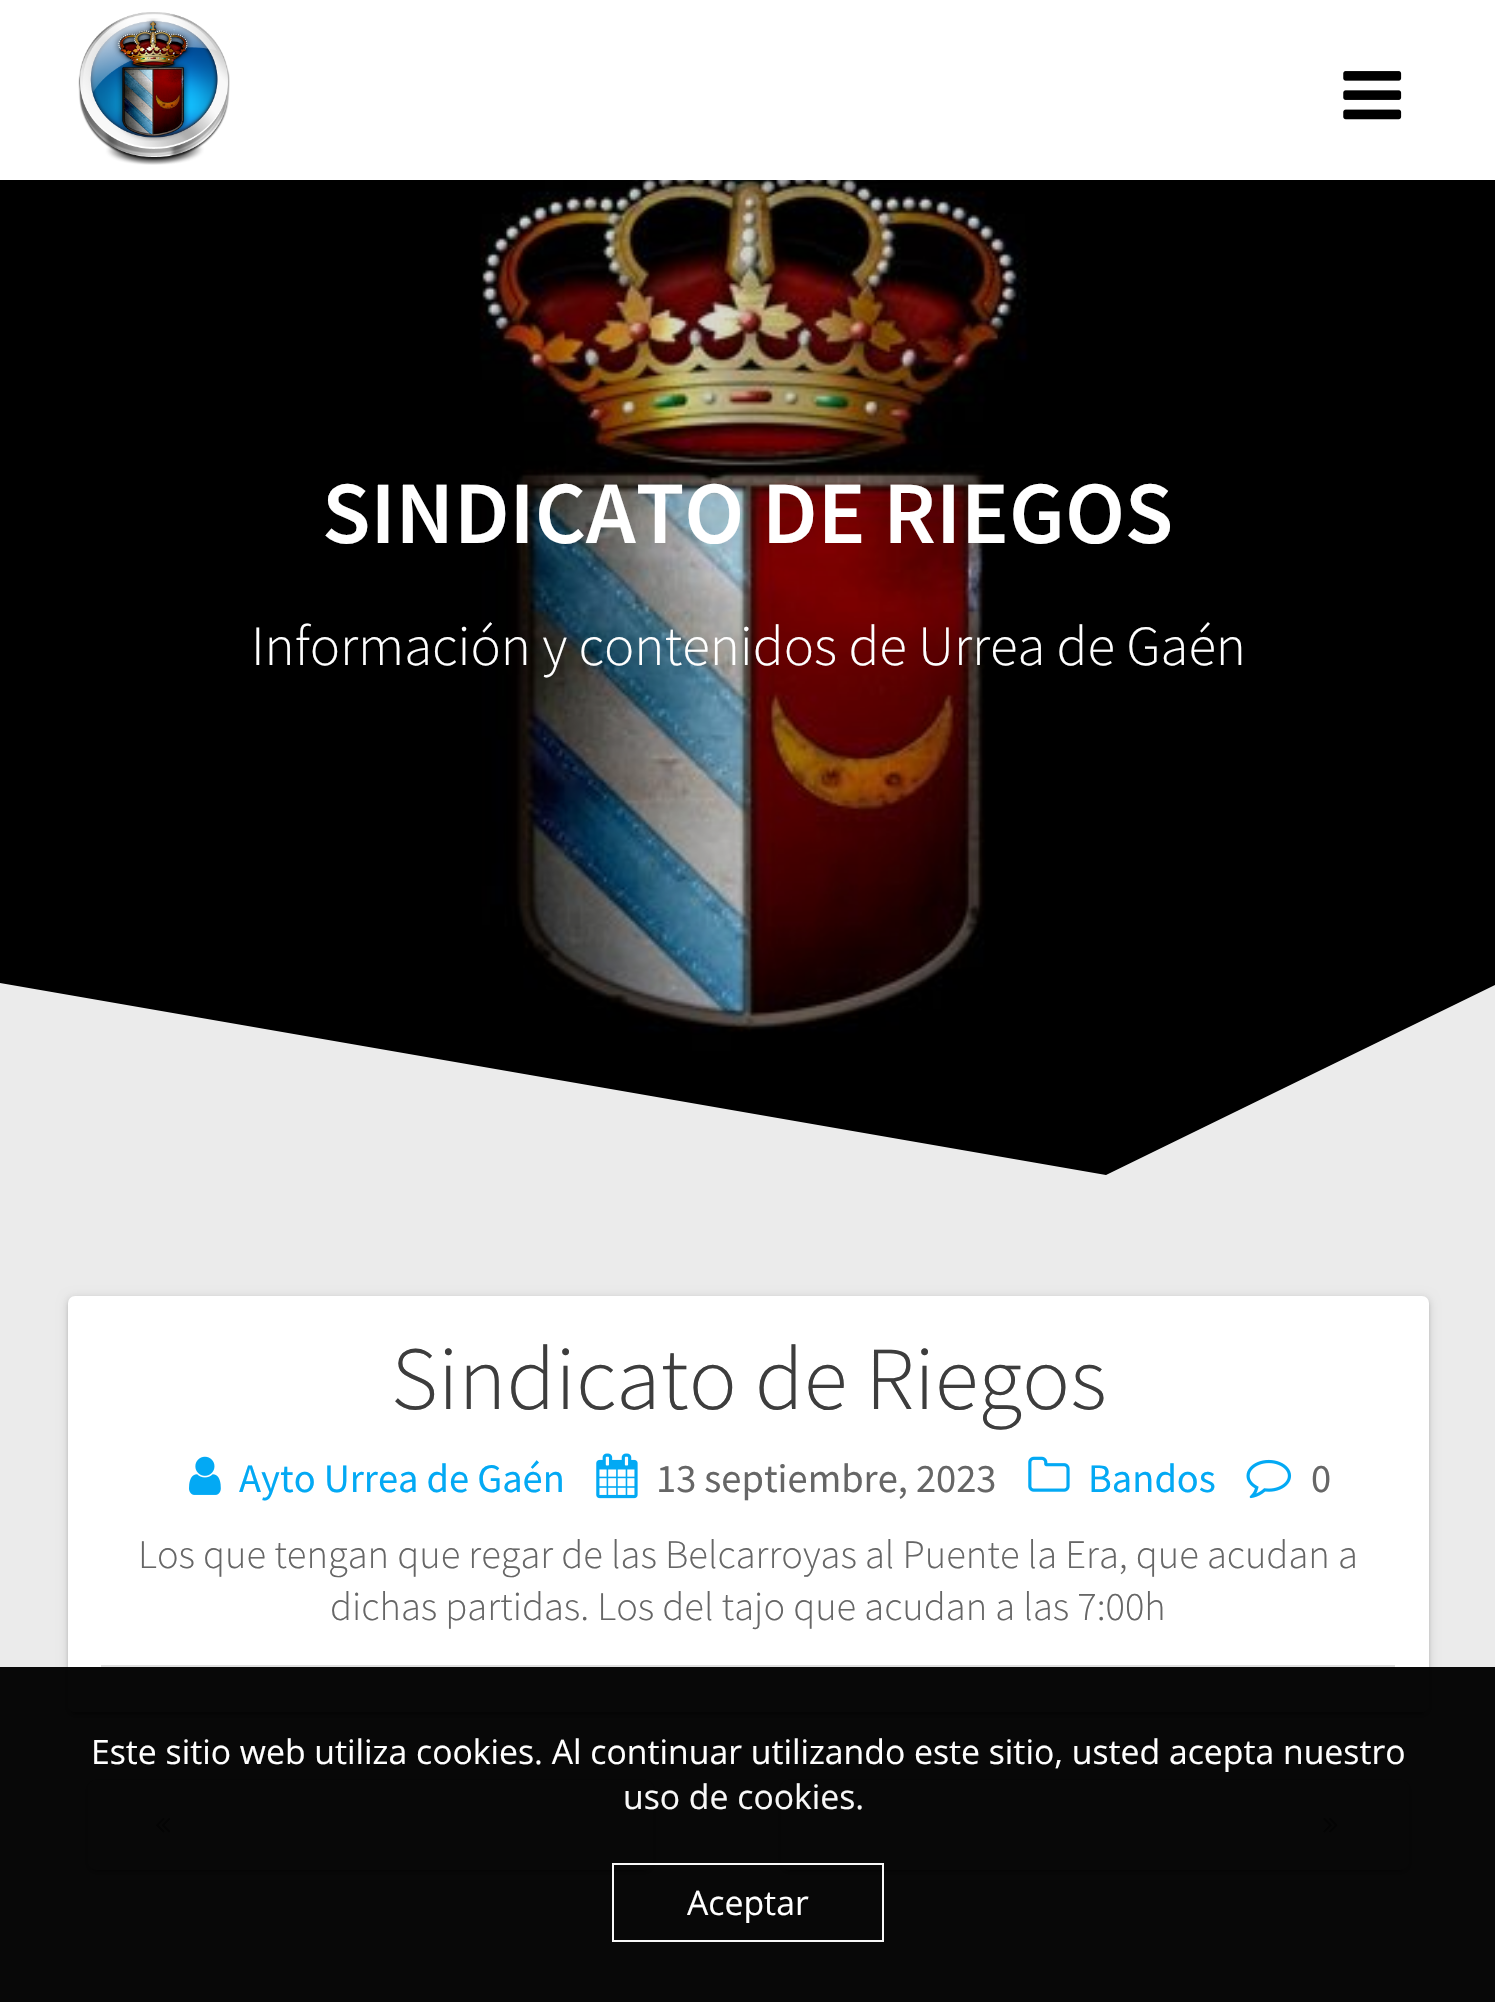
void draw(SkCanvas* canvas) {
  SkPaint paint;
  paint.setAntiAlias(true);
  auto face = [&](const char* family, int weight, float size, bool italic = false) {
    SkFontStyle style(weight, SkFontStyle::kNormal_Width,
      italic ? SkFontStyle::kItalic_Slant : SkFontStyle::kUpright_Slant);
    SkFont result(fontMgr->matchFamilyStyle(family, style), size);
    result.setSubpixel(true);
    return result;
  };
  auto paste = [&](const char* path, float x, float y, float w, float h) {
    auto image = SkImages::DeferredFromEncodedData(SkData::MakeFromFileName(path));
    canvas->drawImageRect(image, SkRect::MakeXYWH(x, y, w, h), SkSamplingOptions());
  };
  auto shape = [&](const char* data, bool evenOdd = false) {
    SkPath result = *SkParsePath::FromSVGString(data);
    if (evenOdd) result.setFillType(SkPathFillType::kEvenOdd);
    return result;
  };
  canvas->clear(0xffebebeb);
  paste("img/3.png", 0, 180, 1495, 995);
  paint.setColor(0x26000000);
  canvas->drawRect(SkRect::MakeXYWH(482, 180, 535, 849), paint);
  paint.setColor(0x54000000);
  paint.setMaskFilter(SkMaskFilter::MakeBlur(kNormal_SkBlurStyle, 5.5f));
  canvas->drawRect(SkRect::MakeXYWH(-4, -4, 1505, 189), paint);
  paint.setMaskFilter(nullptr);
  paint.setColor(0xffffffff);
  canvas->drawRect(SkRect::MakeXYWH(0, 0, 1495, 180), paint);
  paste("img/1.png", 78, 12, 152, 153);
  paste("img/2.png", 1343, 71, 59, 49);
  paint.setColor(0xffebebeb);
  canvas->drawPath(shape("M1106 1175L0 983V1186H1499V983Z"), paint);
  paint.setColor(0x1f000000);
  paint.setMaskFilter(SkMaskFilter::MakeBlur(kNormal_SkBlurStyle, 5.5f));
  canvas->drawRoundRect(SkRect::MakeXYWH(68, 1298, 1361, 417), 7, 7, paint);
  paint.setMaskFilter(nullptr);
  paint.setColor(0x33000000);
  paint.setMaskFilter(SkMaskFilter::MakeBlur(kNormal_SkBlurStyle, 1));
  canvas->drawRoundRect(SkRect::MakeXYWH(72, 1307, 1352, 408), 2, 2, paint);
  paint.setMaskFilter(nullptr);
  paint.setColor(0x24000000);
  paint.setMaskFilter(SkMaskFilter::MakeBlur(kNormal_SkBlurStyle, 2));
  canvas->drawRoundRect(SkRect::MakeXYWH(68, 1298, 1361, 417), 7, 7, paint);
  paint.setMaskFilter(nullptr);
  paint.setColor(0xffffffff);
  canvas->drawRoundRect(SkRect::MakeXYWH(68, 1296, 1361, 416), 7, 7, paint);
  paste("img/4.png", 189, 1456, 32, 39);
  paste("img/5.png", 596, 1453, 42, 46);
  paste("img/6.png", 1028, 1456, 42, 36);
  paste("img/7.png", 1246, 1459, 46, 40);
  paint.setColor(0xffe0e0e0);
  canvas->drawRect(SkRect::MakeXYWH(101, 1665, 1294, 2), paint);
  paint.setColor(0x1f000000);
  paint.setMaskFilter(SkMaskFilter::MakeBlur(kNormal_SkBlurStyle, 5.5f));
  canvas->drawRoundRect(SkRect::MakeXYWH(88, 1782, 565, 90), 9, 9, paint);
  paint.setMaskFilter(nullptr);
  paint.setColor(0x33000000);
  paint.setMaskFilter(SkMaskFilter::MakeBlur(kNormal_SkBlurStyle, 1));
  canvas->drawRoundRect(SkRect::MakeXYWH(92, 1791, 556, 81), 5, 5, paint);
  paint.setMaskFilter(nullptr);
  paint.setColor(0x24000000);
  paint.setMaskFilter(SkMaskFilter::MakeBlur(kNormal_SkBlurStyle, 2));
  canvas->drawRoundRect(SkRect::MakeXYWH(88, 1782, 565, 90), 9, 9, paint);
  paint.setMaskFilter(nullptr);
  paint.setColor(0xffffffff);
  canvas->drawRoundRect(SkRect::MakeXYWH(88, 1780, 565, 90), 9, 9, paint);
  paste("img/8.png", 156, 1817, 15, 16);
  paint.setColor(0x1f000000);
  paint.setMaskFilter(SkMaskFilter::MakeBlur(kNormal_SkBlurStyle, 5.5f));
  canvas->drawRoundRect(SkRect::MakeXYWH(781, 1782, 628, 90), 9, 9, paint);
  paint.setMaskFilter(nullptr);
  paint.setColor(0x33000000);
  paint.setMaskFilter(SkMaskFilter::MakeBlur(kNormal_SkBlurStyle, 1));
  canvas->drawRoundRect(SkRect::MakeXYWH(785, 1791, 619, 81), 5, 5, paint);
  paint.setMaskFilter(nullptr);
  paint.setColor(0x24000000);
  paint.setMaskFilter(SkMaskFilter::MakeBlur(kNormal_SkBlurStyle, 2));
  canvas->drawRoundRect(SkRect::MakeXYWH(781, 1782, 628, 90), 9, 9, paint);
  paint.setMaskFilter(nullptr);
  paint.setColor(0xffffffff);
  canvas->drawRoundRect(SkRect::MakeXYWH(781, 1780, 628, 90), 9, 9, paint);
  paste("img/9.png", 1323, 1817, 15, 16);
  paint.setColor(0xf7000000);
  canvas->drawRect(SkRect::MakeXYWH(0, 1667, 1495, 335), paint);
  paint.setStroke(true);
  paint.setStrokeWidth(2);
  paint.setColor(0xf7ffffff);
  canvas->drawRect(SkRect::MakeXYWH(613, 1864, 270, 77), paint);
  auto f0 = face("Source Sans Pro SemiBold", 600, 89);
  paint.setStroke(false);
  paint.setColor(0xffffffff);
  canvas->drawString("SINDICATO DE RIEGOS", 322, 543, f0, paint);
  auto f1 = face("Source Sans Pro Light", 300, 56.75f);
  canvas->drawString("Información y contenidos de Urrea de Gaén", 251, 665, f1, paint);
  auto f2 = face("Source Sans Pro Light", 300, 90);
  paint.setColor(0xff3d3d3d);
  canvas->drawString("Sindicato de Riegos", 391, 1409, f2, paint);
  auto f3 = face("Source Sans Pro", 400, 40.5f);
  paint.setColor(0xff03a9f4);
  canvas->drawString("Ayto Urrea de Gaén", 239, 1492, f3, paint);
  paint.setColor(0xff666666);
  canvas->drawString("13 septiembre, 2023", 656, 1492, f3, paint);
  paint.setColor(0xff03a9f4);
  canvas->drawString("Bandos", 1088, 1492, f3, paint);
  paint.setColor(0xff666666);
  canvas->drawString("0", 1311, 1492, f3, paint);
  auto f4 = face("Source Sans Pro Light", 300, 40.5f);
  canvas->drawString("Los que tengan que regar de las Belcarroyas al Puente la Era, que acudan a", 138, 1568, f4, paint);
  canvas->drawString("dichas partidas. Los del tajo que acudan a las 7:00h", 330, 1620, f4, paint);
  auto f5 = face("Open Sans", 400, 33.75f);
  paint.setColor(0xffffffff);
  canvas->drawString("Este sitio web utiliza cookies. Al continuar utilizando este sitio, usted acepta nuestro", 91, 1764, f5, paint);
  paint.setColor(0xfff8f8f8);
  canvas->drawString("uso de cookies.", 623, 1809, f5, paint);
  paint.setColor(0xffffffff);
  canvas->drawString("Aceptar", 687, 1915, f5, paint);
}
